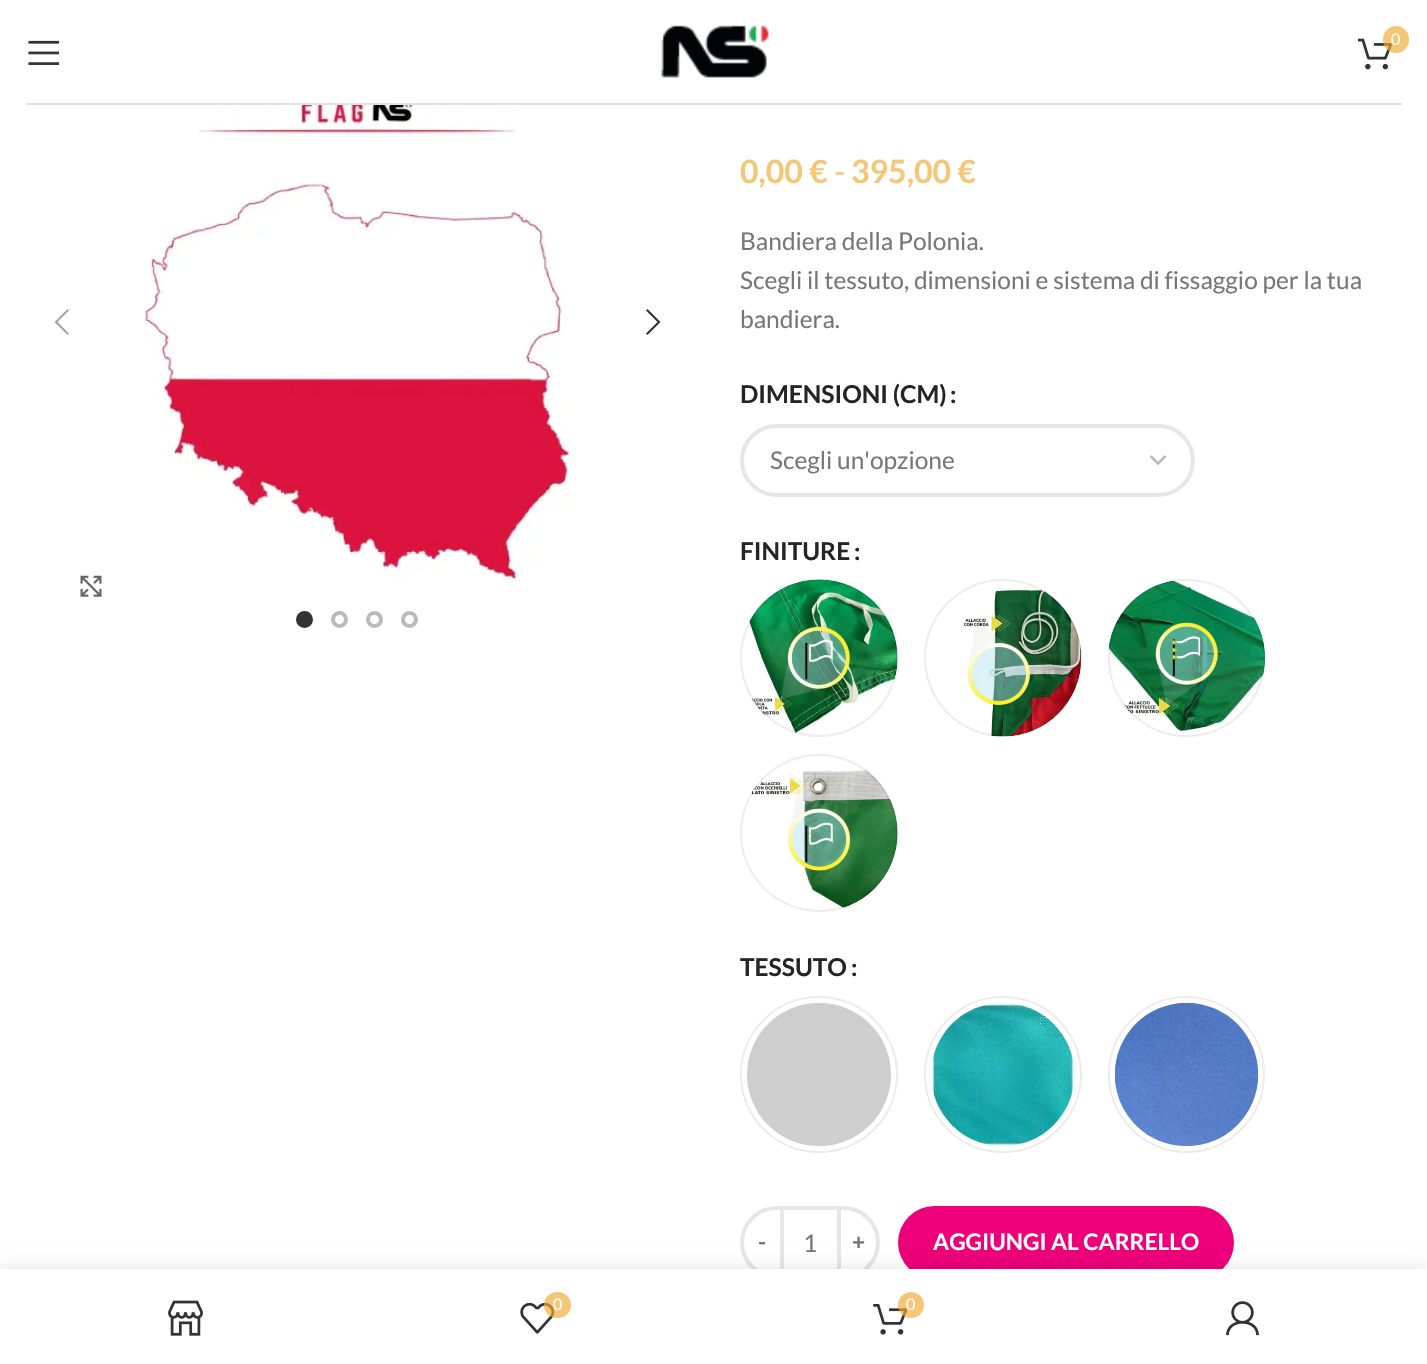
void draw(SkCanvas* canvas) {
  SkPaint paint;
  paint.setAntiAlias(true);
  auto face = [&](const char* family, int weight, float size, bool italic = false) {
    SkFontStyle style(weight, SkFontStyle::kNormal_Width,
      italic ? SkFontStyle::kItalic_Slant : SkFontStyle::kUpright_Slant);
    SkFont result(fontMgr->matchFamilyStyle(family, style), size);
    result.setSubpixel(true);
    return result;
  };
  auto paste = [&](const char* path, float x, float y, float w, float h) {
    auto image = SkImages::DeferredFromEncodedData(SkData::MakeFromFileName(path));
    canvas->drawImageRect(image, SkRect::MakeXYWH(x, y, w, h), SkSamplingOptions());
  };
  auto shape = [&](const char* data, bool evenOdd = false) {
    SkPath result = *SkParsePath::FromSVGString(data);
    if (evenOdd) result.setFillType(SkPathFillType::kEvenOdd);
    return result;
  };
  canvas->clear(0xffffffff);
  paint.setColor(0xffe3e3e3);
  canvas->drawRect(SkRect::MakeXYWH(26, 103, 1376, 2), paint);
  paste("img/1.png", 28, 40, 32, 25);
  paste("img/2.png", 661, 25, 108, 53);
  paste("img/3.png", 1358, 38, 34, 32);
  paint.setColor(0xabeeaa33);
  canvas->drawRoundRect(SkRect::MakeXYWH(1383, 26, 26, 27), 13, 13, paint);
  paste("img/4.png", 144, 105, 429, 478);
  paint.setColor(0xffa5a5a5);
  canvas->drawPath(shape("M69 310.5L67.5 309L54.5 322L67.5 335L69 333.5L57.5 322Z"), paint);
  paint.setColor(0xff333333);
  canvas->drawPath(shape("M646 310.5L657.5 322L646 333.5L647.5 335L660.5 322L647.5 309Z"), paint);
  paste("img/5.png", 80, 575, 22, 22);
  canvas->drawCircle(304.5f, 619.5f, 6.5f, paint);
  paint.setStroke(true);
  paint.setStrokeWidth(4);
  canvas->drawCircle(304.5f, 619.5f, 6.5f, paint);
  paint.setColor(0xffbbbbbb);
  canvas->drawCircle(339.5f, 619.5f, 6.5f, paint);
  canvas->drawCircle(374.5f, 619.5f, 6.5f, paint);
  canvas->drawCircle(409.5f, 619.5f, 6.5f, paint);
  paint.setStrokeWidth(2.5f);
  canvas->drawPath(shape("M1150.5 456L1158 463.5L1165.5 456"), paint);
  paint.setStrokeWidth(4);
  paint.setColor(0xffe6e6e6);
  canvas->drawRoundRect(SkRect::MakeXYWH(742, 426, 451, 69), 34.5f, 34.5f, paint);
  paste("img/6.png", 748, 579, 150, 156);
  paint.setStrokeWidth(2);
  paint.setColor(0x12000000);
  canvas->drawCircle(819, 658, 78, paint);
  paste("img/7.png", 963, 590, 119, 147);
  canvas->drawCircle(1003, 658, 78, paint);
  paste("img/8.png", 1108, 580, 157, 153);
  canvas->drawRoundRect(SkRect::MakeXYWH(1109, 580, 155, 156), 77.5f, 77.5f, paint);
  paste("img/9.png", 751, 770, 147, 138);
  canvas->drawCircle(819, 833, 78, paint);
  paint.setColor(0xffececec);
  canvas->drawRoundRect(SkRect::MakeXYWH(741, 997, 156, 155), 77.5f, 77.5f, paint);
  paint.setStroke(false);
  paint.setColor(0xffcecece);
  canvas->drawRoundRect(SkRect::MakeXYWH(747, 1003, 144, 143), 71.5f, 71.5f, paint);
  paint.setStroke(true);
  paint.setColor(0xffececec);
  canvas->drawRoundRect(SkRect::MakeXYWH(925, 997, 156, 155), 77.5f, 77.5f, paint);
  paste("img/10.png", 931, 1003, 143, 143);
  canvas->drawCircle(1186.5f, 1074.5f, 77.5f, paint);
  paste("img/11.png", 1114, 1002, 145, 145);
  paint.setStrokeWidth(4);
  paint.setColor(0xffe6e6e6);
  canvas->drawPath(shape("M776.5 1208H782V1277H776.5C757.5 1277 742 1261.5 742 1242.5C742 1223.5 757.5 1208 776.5 1208Z"), paint);
  paint.setStroke(false);
  canvas->drawRect(SkRect::MakeXYWH(784, 1206, 53, 4), paint);
  paint.setStroke(true);
  canvas->drawPath(shape("M839 1208H843.5C862.5 1208 878 1223.5 878 1242.5C878 1261.5 862.5 1277 843.5 1277H839Z"), paint);
  paint.setStroke(false);
  paint.setColor(0xffed007a);
  canvas->drawRoundRect(SkRect::MakeXYWH(898, 1206, 336, 73), 36.5f, 36.5f, paint);
  paint.setColor(0x1f000000);
  paint.setMaskFilter(SkMaskFilter::MakeBlur(kNormal_SkBlurStyle, 8));
  canvas->drawRect(SkRect::MakeXYWH(0, 1269, 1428, 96), paint);
  paint.setMaskFilter(nullptr);
  paint.setColor(0xffffffff);
  canvas->drawRect(SkRect::MakeXYWH(0, 1269, 1427, 95), paint);
  paste("img/12.png", 168, 1300, 35, 36);
  paste("img/13.png", 520, 1302, 35, 32);
  paint.setColor(0xabeeaa33);
  canvas->drawRoundRect(SkRect::MakeXYWH(544, 1292, 27, 26), 13, 13, paint);
  paste("img/14.png", 873, 1304, 35, 31);
  canvas->drawCircle(911, 1305, 13, paint);
  paste("img/15.png", 1226, 1301, 33, 35);
  auto f0 = face("Lato", 400, 16);
  paint.setColor(0xffffffff);
  canvas->drawString("0", 1391, 45, f0, paint);
  auto f1 = face("Lato", 700, 32);
  paint.setColor(0xfff4c677);
  canvas->drawString("0,00 €", 740, 183, f1, paint);
  auto f2 = face("Lato", 400, 32);
  canvas->drawString("-", 834, 183, f2, paint);
  canvas->drawString("395,00 €", 851, 183, f1, paint);
  auto f3 = face("Lato", 400, 24.5f);
  paint.setColor(0xff777777);
  {
    const struct { const char* s; float x, y; } items[] = {
      {"Bandiera della Polonia.", 740, 250},
      {"Scegli il tessuto, dimensioni e sistema di fissaggio per la tua", 740, 289},
      {"bandiera.", 740, 328},
    };
    for (auto [s, x, y] : items) {
      canvas->drawString(s, x, y, f3, paint);
    }
  }
  auto f4 = face("Lato", 700, 24.5f);
  paint.setColor(0xff242424);
  canvas->drawString("DIMENSIONI (CM)", 740, 403, f4, paint);
  canvas->drawString(":", 950, 403, f4, paint);
  paint.setColor(0xff777777);
  canvas->drawString("Scegli un'opzione", 770, 469, f3, paint);
  paint.setColor(0xff242424);
  {
    const struct { const char* s; float x, y; } items[] = {
      {"FINITURE", 740, 560},
      {":", 854, 560},
      {"TESSUTO", 740, 976},
      {":", 851, 976},
    };
    for (auto [s, x, y] : items) {
      canvas->drawString(s, x, y, f4, paint);
    }
  }
  auto f5 = face("Lato", 700, 22.75f);
  paint.setColor(0xff777777);
  canvas->drawString("-", 758, 1250, f5, paint);
  canvas->drawString("1", 803, 1252, f3, paint);
  canvas->drawString("+", 852, 1250, f5, paint);
  paint.setColor(0xffffffff);
  canvas->drawString("AGGIUNGI AL CARRELLO", 933, 1250, f5, paint);
  canvas->drawString("0", 553, 1310, f0, paint);
  canvas->drawString("0", 906, 1310, f0, paint);
}
